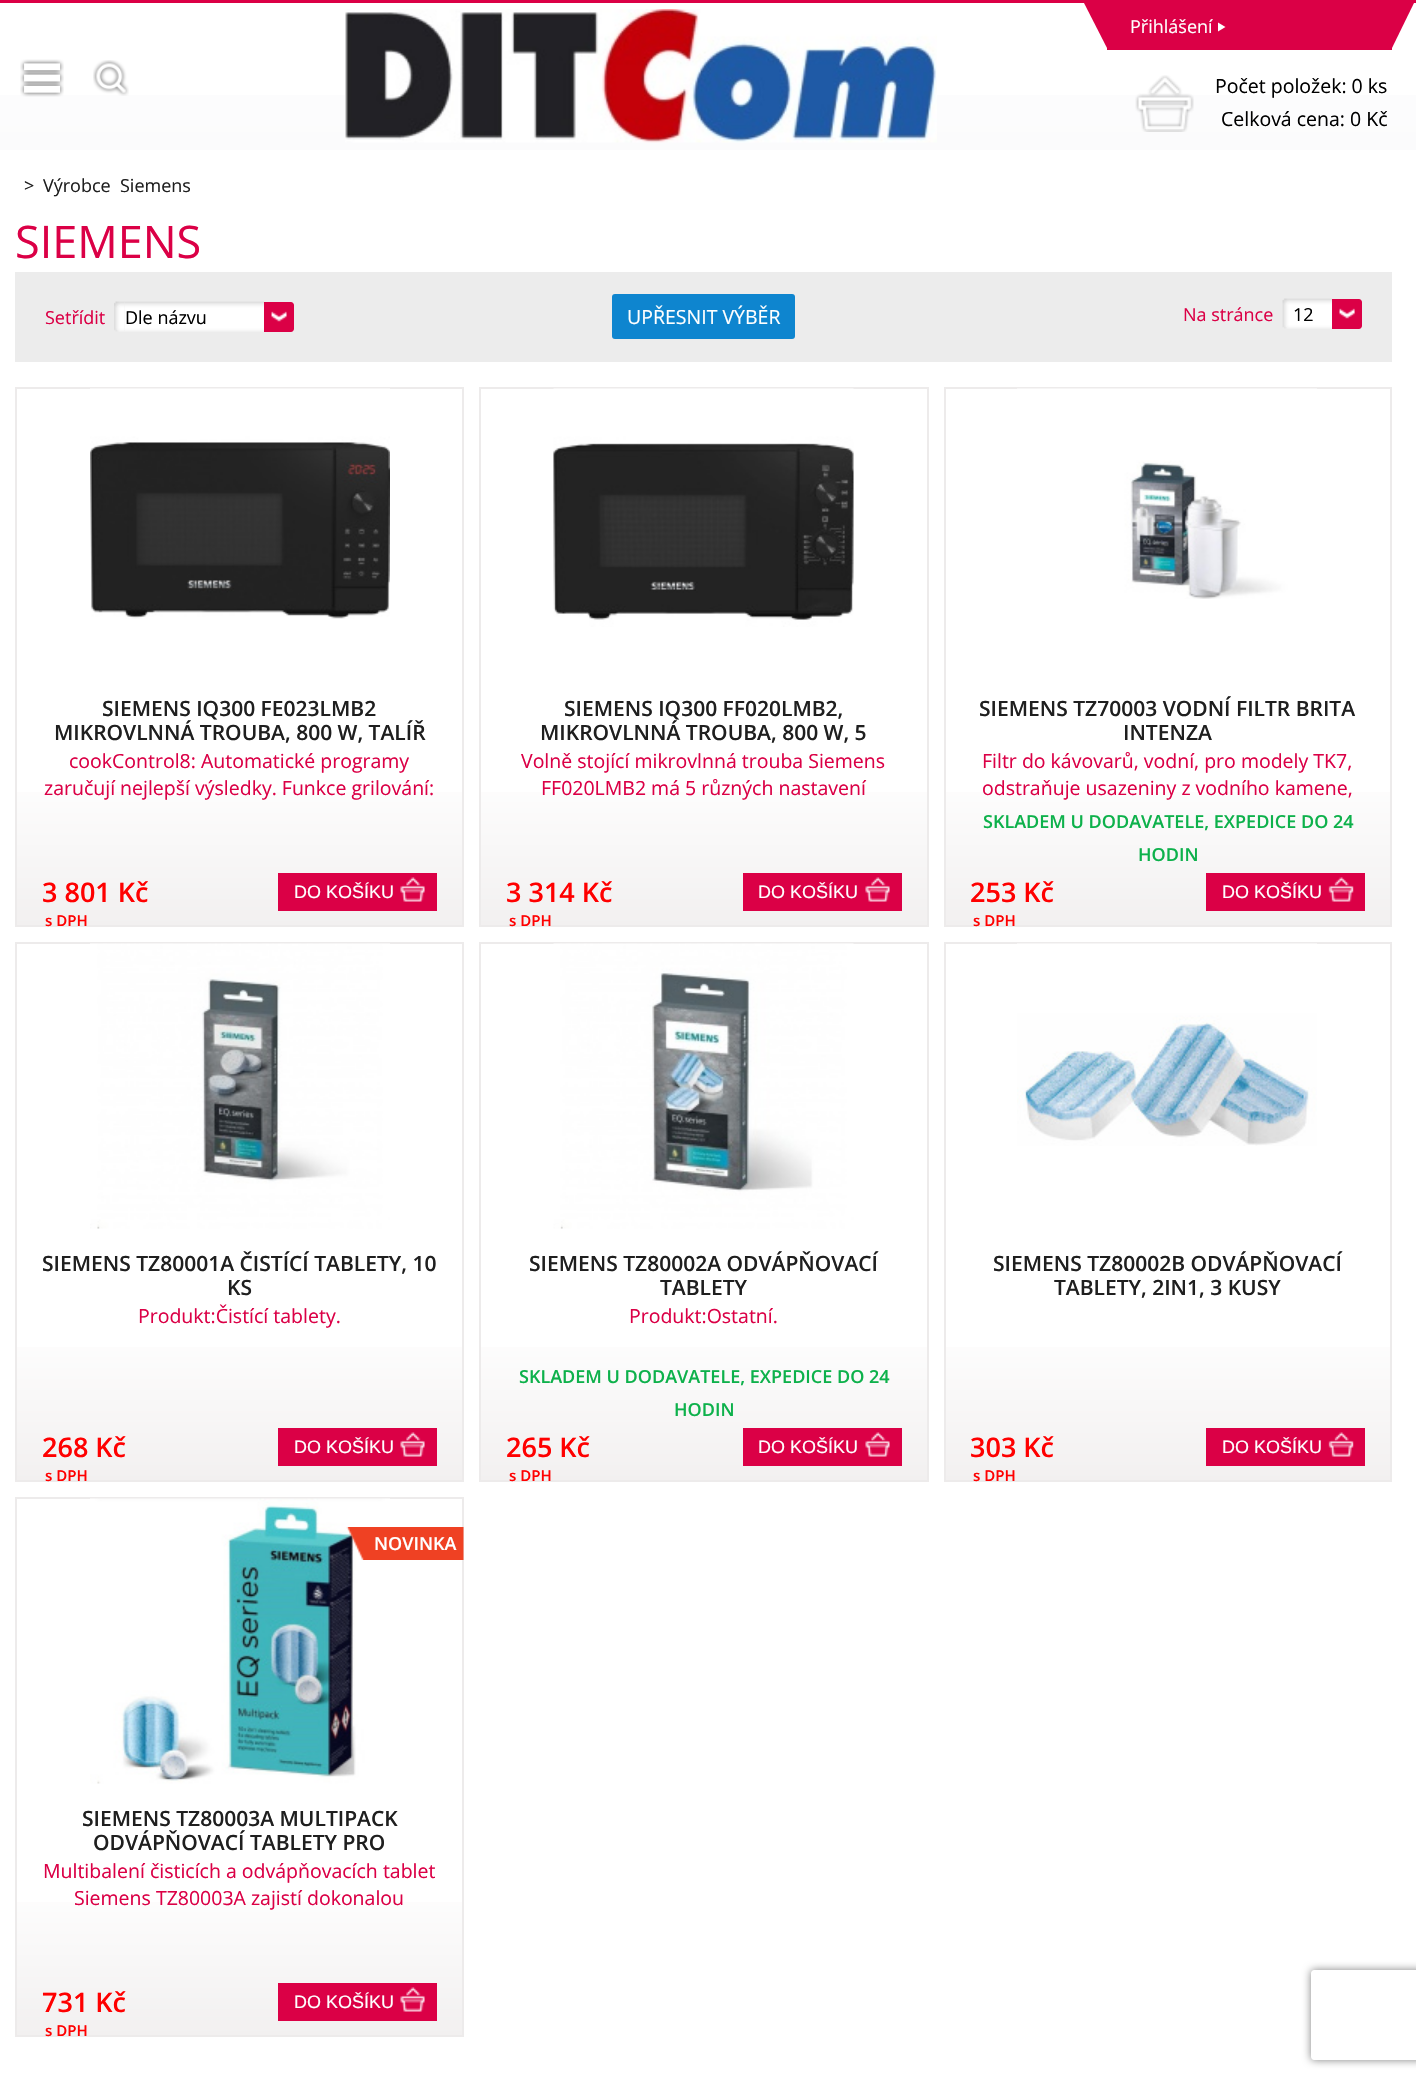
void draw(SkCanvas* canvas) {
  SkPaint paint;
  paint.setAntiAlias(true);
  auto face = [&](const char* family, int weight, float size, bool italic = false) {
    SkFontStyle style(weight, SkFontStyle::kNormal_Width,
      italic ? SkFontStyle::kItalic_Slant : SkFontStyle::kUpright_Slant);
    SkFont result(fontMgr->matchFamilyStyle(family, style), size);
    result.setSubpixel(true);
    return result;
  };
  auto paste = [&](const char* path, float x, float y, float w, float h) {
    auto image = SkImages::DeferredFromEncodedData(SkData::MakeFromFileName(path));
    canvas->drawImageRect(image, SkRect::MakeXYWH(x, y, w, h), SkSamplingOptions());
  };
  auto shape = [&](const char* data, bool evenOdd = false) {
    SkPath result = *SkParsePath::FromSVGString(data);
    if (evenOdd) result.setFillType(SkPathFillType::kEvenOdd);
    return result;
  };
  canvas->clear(0xffffffff);
  {
    const SkColor colors[] = {0xffffffff, 0xfffbfbfc};
    const float stops[] = {0, 1};
    const SkPoint ends[] = {{708, 3}, {708, 150}};
    paint.setShader(SkGradientShader::MakeLinear(ends, colors, stops, 2, SkTileMode::kClamp));
    paint.setAlpha(255);
  }
  canvas->drawRect(SkRect::MakeXYWH(0, 95, 1416, 55), paint);
  paint.setShader(nullptr);
  paint.setColor(0xffdb0046);
  canvas->drawRect(SkRect::MakeXYWH(0, 0, 1416, 3), paint);
  canvas->drawRect(SkRect::MakeXYWH(1107, 3, 285, 47), paint);
  canvas->drawPath(shape("M1084 3H1107V48Z"), paint);
  paint.setColor(0xffffffff);
  canvas->drawPath(shape("M1218 31.5V22.5L1225.5 27Z"), paint);
  paint.setColor(0xffdb0046);
  canvas->drawPath(shape("M1392 3H1414L1392 48Z"), paint);
  paste("img/1.png", 20, 59, 44, 38);
  paste("img/2.png", 93, 60, 36, 36);
  paste("img/3.png", 345, 9, 592, 134);
  paste("img/4.png", 1135, 75, 59, 57);
  paint.setColor(0xffececec);
  canvas->drawRect(SkRect::MakeXYWH(15, 272, 1377, 90), paint);
  paste("img/6.png", 124, 301, 140, 31);
  paste("img/5.png", 114, 301, 11, 31);
  paint.setColor(0xffdb0046);
  canvas->drawPath(shape("M264 302H291C292.5 302 294 303.5 294 305V329C294 330.5 292.5 332 291 332H264Z"), paint);
  paste("img/7.png", 271, 311, 16, 11);
  paint.setColor(0xff0e85cf);
  canvas->drawRoundRect(SkRect::MakeXYWH(612, 294, 183, 45), 3, 3, paint);
  paste("img/8.png", 1282, 298, 11, 31);
  paste("img/9.png", 1293, 298, 39, 31);
  paint.setColor(0xffdb0046);
  canvas->drawPath(shape("M1332 299H1359C1360.5 299 1362 300.5 1362 302V326C1362 327.5 1360.5 329 1359 329H1332Z"), paint);
  paste("img/10.png", 1339, 308, 16, 11);
  {
    const SkColor colors[] = {0xffffffff, 0xfff2f0f0};
    const float stops[] = {0.7f, 1};
    const SkPoint ends[] = {{239, 389}, {239, 926}};
    paint.setShader(SkGradientShader::MakeLinear(ends, colors, stops, 2, SkTileMode::kClamp));
    paint.setAlpha(255);
  }
  canvas->drawRect(SkRect::MakeXYWH(17, 792, 445, 133), paint);
  paint.setStroke(true);
  paint.setStrokeWidth(2);
  paint.setShader(nullptr);
  paint.setColor(0xffedebeb);
  canvas->drawRect(SkRect::MakeXYWH(16, 388, 447, 538), paint);
  paste("img/11.png", 90, 388, 300, 231);
  paint.setStroke(false);
  paint.setColor(0xffdb0046);
  canvas->drawRect(SkRect::MakeXYWH(278, 873, 159, 38), paint);
  paste("img/12.png", 400, 877, 25, 25);
  {
    const SkColor colors[] = {0xffffffff, 0xfff2f0f0};
    const float stops[] = {0.7f, 1};
    const SkPoint ends[] = {{704, 389}, {704, 926}};
    paint.setShader(SkGradientShader::MakeLinear(ends, colors, stops, 2, SkTileMode::kClamp));
    paint.setAlpha(255);
  }
  canvas->drawRect(SkRect::MakeXYWH(481, 792, 446, 133), paint);
  paint.setStroke(true);
  paint.setShader(nullptr);
  paint.setColor(0xffedebeb);
  canvas->drawRect(SkRect::MakeXYWH(480, 388, 448, 538), paint);
  paste("img/13.png", 553, 388, 301, 239);
  paint.setStroke(false);
  paint.setColor(0xffdb0046);
  canvas->drawRect(SkRect::MakeXYWH(743, 873, 159, 38), paint);
  paste("img/12.png", 865, 877, 25, 25);
  {
    const SkColor colors[] = {0xffffffff, 0xfff2f0f0};
    const float stops[] = {0.7f, 1};
    const SkPoint ends[] = {{1168, 389}, {1168, 926}};
    paint.setShader(SkGradientShader::MakeLinear(ends, colors, stops, 2, SkTileMode::kClamp));
    paint.setAlpha(255);
  }
  canvas->drawRect(SkRect::MakeXYWH(946, 792, 444, 133), paint);
  paint.setStroke(true);
  paint.setShader(nullptr);
  paint.setColor(0xffedebeb);
  canvas->drawRect(SkRect::MakeXYWH(945, 388, 446, 538), paint);
  paste("img/14.png", 1017, 388, 300, 211);
  paint.setStroke(false);
  paint.setColor(0xffdb0046);
  canvas->drawRect(SkRect::MakeXYWH(1206, 873, 159, 38), paint);
  paste("img/15.png", 1328, 877, 26, 25);
  {
    const SkColor colors[] = {0xffffffff, 0xfff2f0f0};
    const float stops[] = {0.7f, 1};
    const SkPoint ends[] = {{239, 944}, {239, 1481}};
    paint.setShader(SkGradientShader::MakeLinear(ends, colors, stops, 2, SkTileMode::kClamp));
    paint.setAlpha(255);
  }
  canvas->drawRect(SkRect::MakeXYWH(17, 1347, 445, 133), paint);
  paint.setStroke(true);
  paint.setShader(nullptr);
  paint.setColor(0xffedebeb);
  canvas->drawRect(SkRect::MakeXYWH(16, 943, 447, 538), paint);
  paste("img/16.png", 90, 943, 300, 286);
  paint.setStroke(false);
  paint.setColor(0xffdb0046);
  canvas->drawRect(SkRect::MakeXYWH(278, 1428, 159, 38), paint);
  paste("img/12.png", 400, 1432, 25, 25);
  {
    const SkColor colors[] = {0xffffffff, 0xfff2f0f0};
    const float stops[] = {0.7f, 1};
    const SkPoint ends[] = {{704, 944}, {704, 1481}};
    paint.setShader(SkGradientShader::MakeLinear(ends, colors, stops, 2, SkTileMode::kClamp));
    paint.setAlpha(255);
  }
  canvas->drawRect(SkRect::MakeXYWH(481, 1347, 446, 133), paint);
  paint.setStroke(true);
  paint.setShader(nullptr);
  paint.setColor(0xffedebeb);
  canvas->drawRect(SkRect::MakeXYWH(480, 943, 448, 538), paint);
  paste("img/17.png", 553, 943, 301, 286);
  paint.setStroke(false);
  paint.setColor(0xffdb0046);
  canvas->drawRect(SkRect::MakeXYWH(743, 1428, 159, 38), paint);
  paste("img/12.png", 865, 1432, 25, 25);
  {
    const SkColor colors[] = {0xffffffff, 0xfff2f0f0};
    const float stops[] = {0.7f, 1};
    const SkPoint ends[] = {{1168, 944}, {1168, 1481}};
    paint.setShader(SkGradientShader::MakeLinear(ends, colors, stops, 2, SkTileMode::kClamp));
    paint.setAlpha(255);
  }
  canvas->drawRect(SkRect::MakeXYWH(946, 1347, 444, 133), paint);
  paint.setStroke(true);
  paint.setShader(nullptr);
  paint.setColor(0xffedebeb);
  canvas->drawRect(SkRect::MakeXYWH(945, 943, 446, 538), paint);
  paste("img/18.png", 1017, 943, 300, 203);
  paint.setStroke(false);
  paint.setColor(0xffdb0046);
  canvas->drawRect(SkRect::MakeXYWH(1206, 1428, 159, 38), paint);
  paste("img/15.png", 1328, 1432, 26, 25);
  {
    const SkColor colors[] = {0xffffffff, 0xfff2f0f0};
    const float stops[] = {0.7f, 1};
    const SkPoint ends[] = {{239, 1499}, {239, 2036}};
    paint.setShader(SkGradientShader::MakeLinear(ends, colors, stops, 2, SkTileMode::kClamp));
    paint.setAlpha(255);
  }
  canvas->drawRect(SkRect::MakeXYWH(17, 1902, 445, 133), paint);
  paint.setStroke(true);
  paint.setShader(nullptr);
  paint.setColor(0xffedebeb);
  canvas->drawRect(SkRect::MakeXYWH(16, 1498, 447, 538), paint);
  paste("img/19.png", 90, 1498, 300, 286);
  paste("img/20.png", 346, 1527, 118, 33);
  paint.setStroke(false);
  paint.setColor(0xffdb0046);
  canvas->drawRect(SkRect::MakeXYWH(278, 1983, 159, 38), paint);
  paste("img/12.png", 400, 1987, 25, 25);
  canvas->save();
  canvas->clipPath(shape("M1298 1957H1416V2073H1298ZM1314 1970H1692C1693.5 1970 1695 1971.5 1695 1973V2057C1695 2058.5 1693.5 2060 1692 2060H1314C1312.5 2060 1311 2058.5 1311 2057V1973C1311 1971.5 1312.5 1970 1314 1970Z", true), true);
  paint.setColor(0xff808080);
  paint.setMaskFilter(SkMaskFilter::MakeBlur(kNormal_SkBlurStyle, 4));
  canvas->drawRoundRect(SkRect::MakeXYWH(1311, 1970, 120, 90), 3, 3, paint);
  paint.setMaskFilter(nullptr);
  canvas->restore();
  auto f0 = face("Open Sans", 400, 18);
  paint.setColor(0xffffffff);
  canvas->drawString("Přihlášení", 1130, 33, f0, paint);
  auto f1 = face("Open Sans", 400, 19.5f);
  paint.setColor(0xff000000);
  canvas->drawString("Počet položek: 0 ks", 1215, 93, f1, paint);
  canvas->drawString("Celková cena: 0 Kč", 1221, 126, f1, paint);
  paint.setColor(0xff1f1f1f);
  {
    const struct { const char* s; float x, y; } items[] = {
      {">", 24, 192},
      {"Výrobce", 43, 192},
      {"Siemens", 120, 192},
    };
    for (auto [s, x, y] : items) {
      canvas->drawString(s, x, y, f0, paint);
    }
  }
  auto f2 = face("Open Sans", 400, 45);
  paint.setColor(0xffdb0046);
  canvas->drawString("SIEMENS", 15, 258, f2, paint);
  canvas->drawString("Setřídit", 45, 324, f0, paint);
  paint.setColor(0xff000000);
  canvas->drawString("Dle názvu", 125, 324, f0, paint);
  paint.setColor(0xffffffff);
  canvas->drawString("UPŘESNIT VÝBĚR", 627, 324, f1, paint);
  paint.setColor(0xffdb0046);
  canvas->drawString("Na stránce", 1183, 321, f0, paint);
  paint.setColor(0xff000000);
  canvas->drawString("12", 1293, 321, f0, paint);
  auto f3 = face("Open Sans", 600, 21);
  paint.setColor(0xff1f1f1f);
  canvas->drawString("SIEMENS IQ300 FE023LMB2", 102, 716, f3, paint);
  canvas->drawString("MIKROVLNNÁ TROUBA, 800 W, TALÍŘ", 54, 740, f3, paint);
  paint.setColor(0xffdb0046);
  canvas->drawString("cookControl8: Automatické programy", 69, 768, f1, paint);
  canvas->drawString("zaručují nejlepší výsledky. Funkce grilování:", 44, 795, f1, paint);
  auto f4 = face("Open Sans", 600, 27);
  paint.setColor(0xffff0000);
  canvas->drawString("3 801 Kč", 42, 902, f4, paint);
  auto f5 = face("Open Sans", 600, 15);
  canvas->drawString("s DPH", 45, 926, f5, paint);
  auto f6 = face("Liberation Sans", 400, 18);
  paint.setColor(0xffffffff);
  canvas->drawString("DO KOŠÍKU", 294, 898, f6, paint);
  paint.setColor(0xff1f1f1f);
  canvas->drawString("SIEMENS IQ300 FF020LMB2,", 564, 716, f3, paint);
  canvas->drawString("MIKROVLNNÁ TROUBA, 800 W, 5", 540, 740, f3, paint);
  paint.setColor(0xffdb0046);
  canvas->drawString("Volně stojící mikrovlnná trouba Siemens", 521, 768, f1, paint);
  canvas->drawString("FF020LMB2 má 5 různých nastavení", 541, 795, f1, paint);
  paint.setColor(0xffff0000);
  canvas->drawString("3 314 Kč", 506, 902, f4, paint);
  canvas->drawString("s DPH", 509, 926, f5, paint);
  paint.setColor(0xffffffff);
  canvas->drawString("DO KOŠÍKU", 758, 898, f6, paint);
  paint.setColor(0xff1f1f1f);
  canvas->drawString("SIEMENS TZ70003 VODNÍ FILTR BRITA", 979, 716, f3, paint);
  canvas->drawString("INTENZA", 1123, 740, f3, paint);
  paint.setColor(0xffdb0046);
  canvas->drawString("Filtr do kávovarů, vodní, pro modely TK7,", 982, 768, f1, paint);
  canvas->drawString("odstraňuje usazeniny z vodního kamene,", 982, 795, f1, paint);
  paint.setColor(0xffff0000);
  canvas->drawString("253 Kč", 970, 902, f4, paint);
  canvas->drawString("s DPH", 973, 926, f5, paint);
  paint.setColor(0xffffffff);
  canvas->drawString("DO KOŠÍKU", 1222, 898, f6, paint);
  auto f7 = face("Open Sans", 600, 18);
  paint.setColor(0xff0db14b);
  canvas->drawString("SKLADEM U DODAVATELE, EXPEDICE DO 24", 983, 828, f7, paint);
  canvas->drawString("HODIN", 1138, 861, f7, paint);
  paint.setColor(0xff1f1f1f);
  canvas->drawString("SIEMENS TZ80001A ČISTÍCÍ TABLETY, 10", 42, 1271, f3, paint);
  canvas->drawString("KS", 227, 1295, f3, paint);
  paint.setColor(0xffdb0046);
  canvas->drawString("Produkt:Čistící tablety.", 138, 1323, f1, paint);
  paint.setColor(0xffff0000);
  canvas->drawString("268 Kč", 42, 1457, f4, paint);
  canvas->drawString("s DPH", 45, 1481, f5, paint);
  paint.setColor(0xffffffff);
  canvas->drawString("DO KOŠÍKU", 294, 1453, f6, paint);
  paint.setColor(0xff1f1f1f);
  canvas->drawString("SIEMENS TZ80002A ODVÁPŇOVACÍ", 529, 1271, f3, paint);
  canvas->drawString("TABLETY", 660, 1295, f3, paint);
  paint.setColor(0xffdb0046);
  canvas->drawString("Produkt:Ostatní.", 629, 1323, f1, paint);
  paint.setColor(0xffff0000);
  canvas->drawString("265 Kč", 506, 1457, f4, paint);
  canvas->drawString("s DPH", 509, 1481, f5, paint);
  paint.setColor(0xffffffff);
  canvas->drawString("DO KOŠÍKU", 758, 1453, f6, paint);
  paint.setColor(0xff0db14b);
  canvas->drawString("SKLADEM U DODAVATELE, EXPEDICE DO 24", 519, 1383, f7, paint);
  canvas->drawString("HODIN", 674, 1416, f7, paint);
  paint.setColor(0xff1f1f1f);
  canvas->drawString("SIEMENS TZ80002B ODVÁPŇOVACÍ", 993, 1271, f3, paint);
  canvas->drawString("TABLETY, 2IN1, 3 KUSY", 1054, 1295, f3, paint);
  paint.setColor(0xffff0000);
  canvas->drawString("303 Kč", 970, 1457, f4, paint);
  canvas->drawString("s DPH", 973, 1481, f5, paint);
  paint.setColor(0xffffffff);
  canvas->drawString("DO KOŠÍKU", 1222, 1453, f6, paint);
  canvas->drawString("NOVINKA", 374, 1550, f7, paint);
  paint.setColor(0xff1f1f1f);
  canvas->drawString("SIEMENS TZ80003A MULTIPACK", 82, 1826, f3, paint);
  canvas->drawString("ODVÁPŇOVACÍ TABLETY PRO", 93, 1850, f3, paint);
  paint.setColor(0xffdb0046);
  canvas->drawString("Multibalení čisticích a odvápňovacích tablet", 43, 1878, f1, paint);
  canvas->drawString("Siemens TZ80003A zajistí dokonalou", 74, 1905, f1, paint);
  paint.setColor(0xffff0000);
  canvas->drawString("731 Kč", 42, 2012, f4, paint);
  canvas->drawString("s DPH", 45, 2036, f5, paint);
  paint.setColor(0xffffffff);
  canvas->drawString("DO KOŠÍKU", 294, 2008, f6, paint);
}
